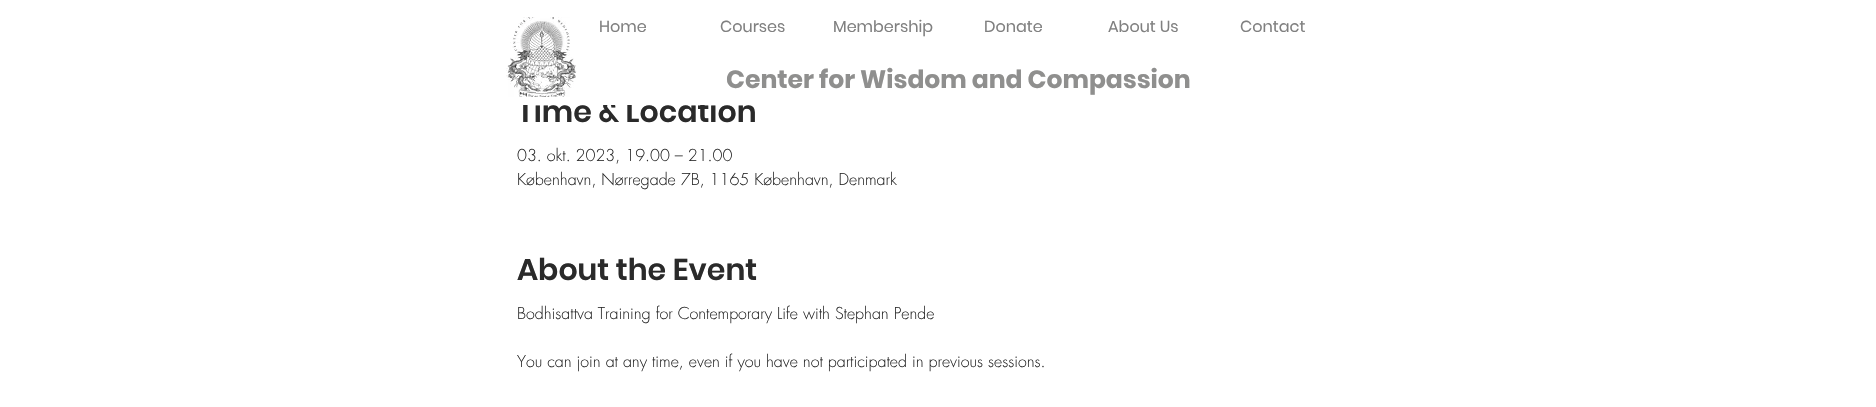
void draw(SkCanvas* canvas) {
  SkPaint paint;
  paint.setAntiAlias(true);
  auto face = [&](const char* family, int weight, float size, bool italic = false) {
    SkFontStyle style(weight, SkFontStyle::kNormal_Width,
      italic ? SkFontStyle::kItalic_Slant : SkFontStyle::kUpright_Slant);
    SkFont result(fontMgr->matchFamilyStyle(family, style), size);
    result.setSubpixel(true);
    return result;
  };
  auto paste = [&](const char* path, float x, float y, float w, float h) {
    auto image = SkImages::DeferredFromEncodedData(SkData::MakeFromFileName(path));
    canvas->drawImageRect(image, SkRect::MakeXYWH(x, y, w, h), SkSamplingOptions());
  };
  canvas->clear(0xffffffff);
  paste("img/1.png", 506, 17, 71, 80);
  auto f0 = face("Poppins", 400, 16);
  paint.setColor(0xff808080);
  {
    const struct { const char* s; float x, y; } items[] = {
      {"Home", 599, 32},
      {"Courses", 720, 32},
      {"Membership", 833, 32},
      {"Donate", 984, 32},
      {"About Us", 1108, 32},
      {"Contact", 1240, 32},
    };
    for (auto [s, x, y] : items) {
      canvas->drawString(s, x, y, f0, paint);
    }
  }
  auto f1 = face("Poppins", 700, 25);
  paint.setColor(0xff8f8f8e);
  canvas->drawString("Center for Wisdom and Compassion", 726, 88, f1, paint);
  auto f2 = face("Poppins", 600, 30);
  paint.setColor(0xff2a2a2a);
  canvas->drawString("Time & Location", 517, 122, f2, paint);
  paint.setColor(0xffffffff);
  canvas->drawRect(SkRect::MakeXYWH(516, 98, 200, 7), paint);
  auto f3 = face("futura", 300, 16);
  paint.setColor(0xff2a2a2a);
  canvas->drawString("03. okt. 2023, 19.00 – 21.00", 517, 161, f3, paint);
  canvas->drawString("København, Nørregade 7B, 1165 København, Denmark", 517, 185, f3, paint);
  canvas->drawString("About the Event", 517, 280, f2, paint);
  canvas->drawString("Bodhisattva Training for Contemporary Life with Stephan Pende", 517, 319, f3, paint);
  canvas->drawString("You can join at any time, even if you have not participated in previous sessions.", 517, 367, f3, paint);
}
